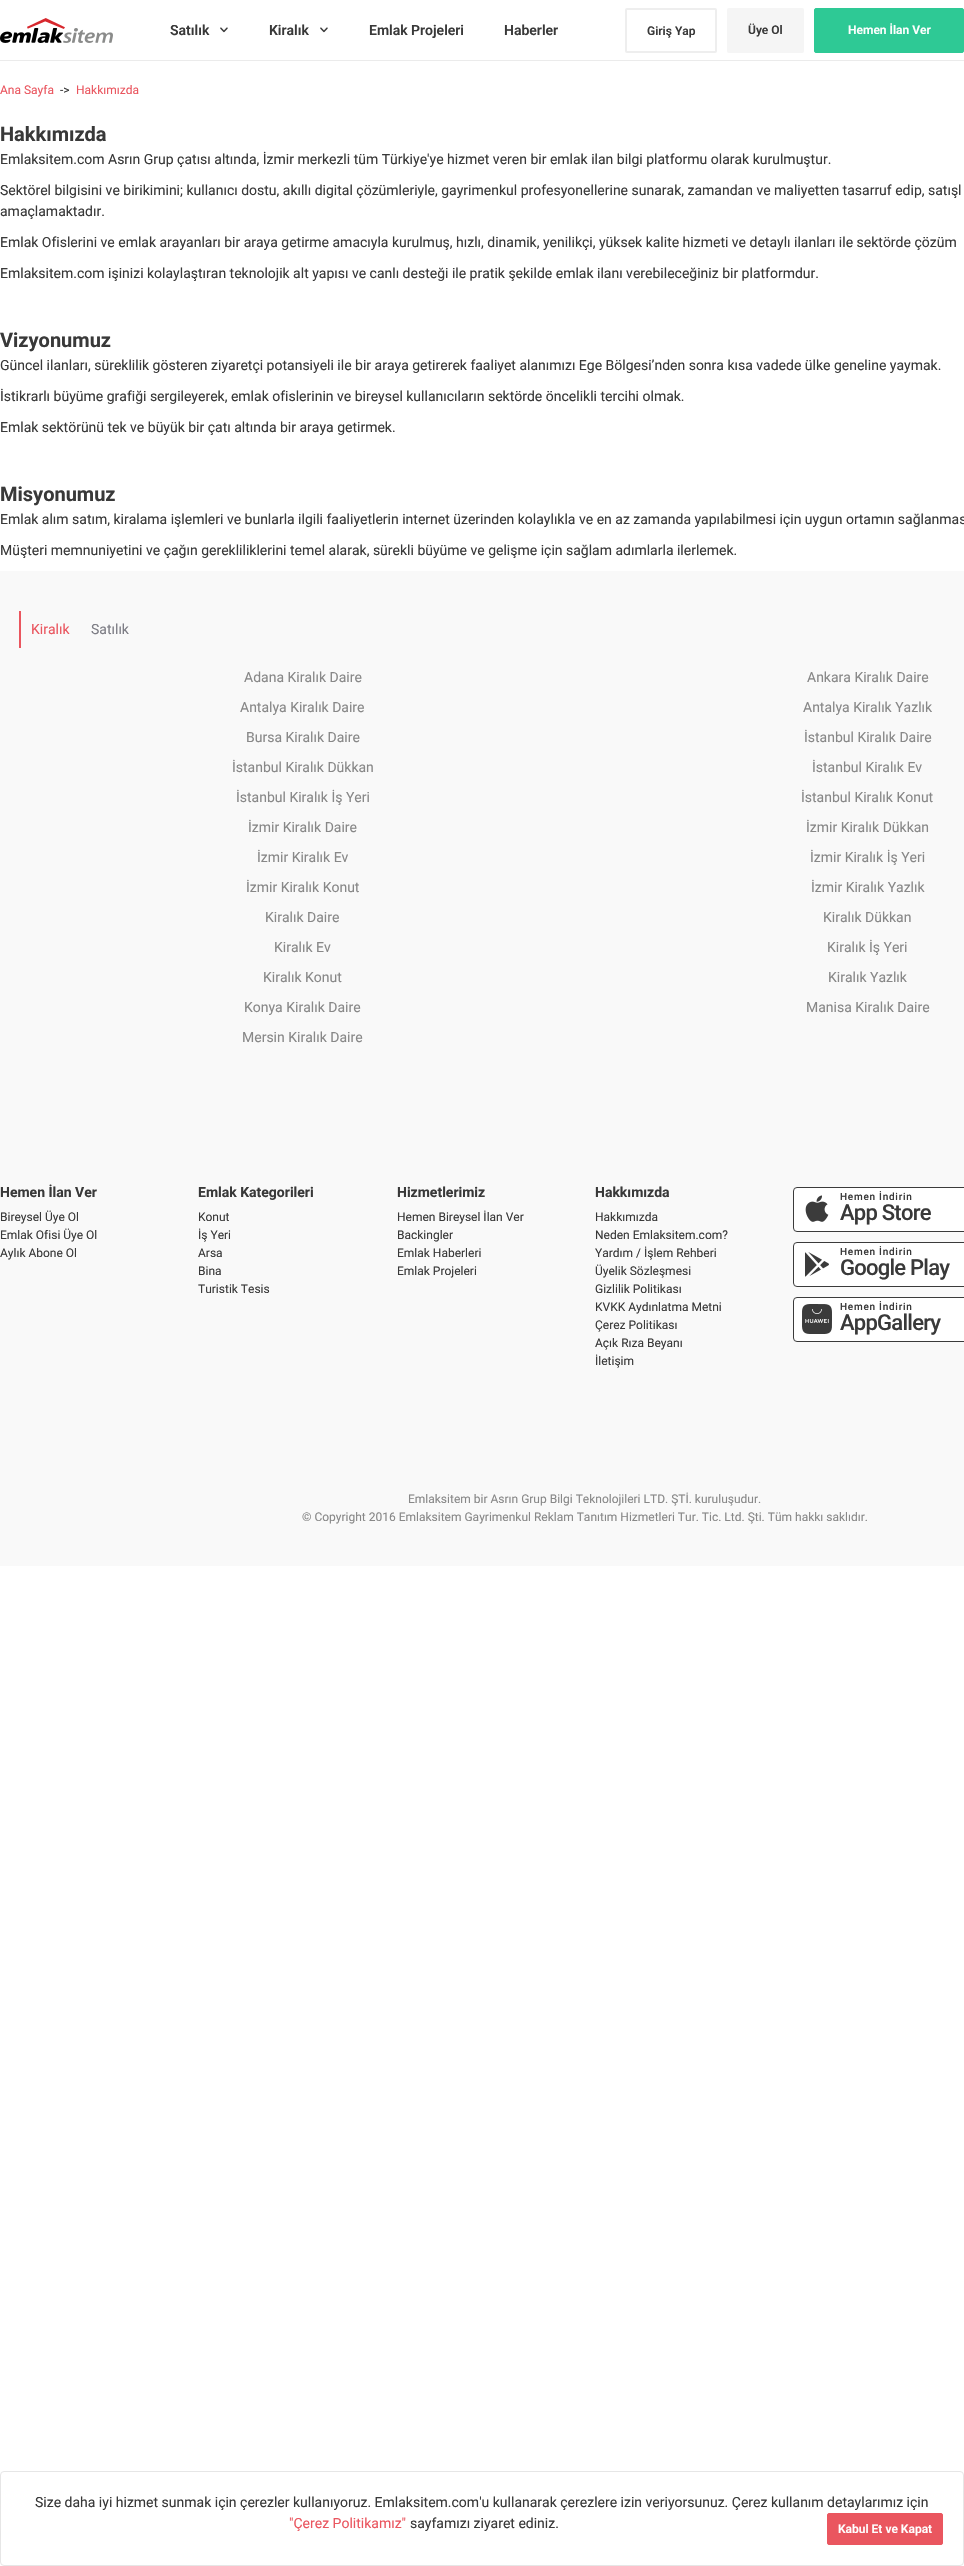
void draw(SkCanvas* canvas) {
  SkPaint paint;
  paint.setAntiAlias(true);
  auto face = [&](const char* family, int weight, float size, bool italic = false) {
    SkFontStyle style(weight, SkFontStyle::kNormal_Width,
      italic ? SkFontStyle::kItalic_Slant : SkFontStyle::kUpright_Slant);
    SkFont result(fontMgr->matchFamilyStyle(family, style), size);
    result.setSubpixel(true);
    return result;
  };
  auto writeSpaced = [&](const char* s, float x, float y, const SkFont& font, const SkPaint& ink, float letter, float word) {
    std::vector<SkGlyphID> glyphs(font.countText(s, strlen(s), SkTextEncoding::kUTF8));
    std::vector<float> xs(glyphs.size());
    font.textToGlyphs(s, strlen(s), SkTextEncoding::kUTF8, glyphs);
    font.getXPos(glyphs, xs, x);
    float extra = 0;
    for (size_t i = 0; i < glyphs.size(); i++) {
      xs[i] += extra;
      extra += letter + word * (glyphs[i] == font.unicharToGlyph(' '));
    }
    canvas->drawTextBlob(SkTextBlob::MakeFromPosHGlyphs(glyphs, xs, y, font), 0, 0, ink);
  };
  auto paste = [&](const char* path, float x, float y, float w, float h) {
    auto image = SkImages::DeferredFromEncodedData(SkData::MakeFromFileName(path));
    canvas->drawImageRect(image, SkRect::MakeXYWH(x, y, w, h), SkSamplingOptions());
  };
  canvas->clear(0xffffffff);
  paint.setColor(0xffebebeb);
  canvas->drawRect(SkRect::MakeXYWH(0, 60, 964, 1), paint);
  paste("img/1.png", 0, 18, 113, 25);
  paste("img/2.png", 220, 27, 8, 6);
  paste("img/2.png", 320, 27, 8, 6);
  paint.setStroke(true);
  paint.setStrokeWidth(2);
  paint.setColor(0xffeeeeee);
  canvas->drawRoundRect(SkRect::MakeXYWH(626, 9, 90, 43), 1, 1, paint);
  paint.setStroke(false);
  paint.setColor(0xfff5f5f5);
  canvas->drawRoundRect(SkRect::MakeXYWH(727, 8, 77, 45), 2, 2, paint);
  paint.setColor(0xff2ec995);
  canvas->drawRoundRect(SkRect::MakeXYWH(814.5f, 8.5f, 149, 44), 1.5f, 1.5f, paint);
  paint.setStroke(true);
  paint.setStrokeWidth(1);
  canvas->drawRoundRect(SkRect::MakeXYWH(814.5f, 8.5f, 149, 44), 1.5f, 1.5f, paint);
  paint.setStroke(false);
  paint.setColor(0xfff9f9f9);
  canvas->drawRect(SkRect::MakeXYWH(0, 571, 964, 995), paint);
  paint.setColor(0xffea565f);
  canvas->drawRect(SkRect::MakeXYWH(19, 611, 2, 37), paint);
  paint.setColor(0xffffffff);
  canvas->drawRoundRect(SkRect::MakeXYWH(793.5f, 1187.5f, 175, 44), 3.5f, 3.5f, paint);
  paint.setStroke(true);
  paint.setColor(0xff3b3b3b);
  canvas->drawRoundRect(SkRect::MakeXYWH(793.5f, 1187.5f, 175, 44), 3.5f, 3.5f, paint);
  paste("img/3.png", 805, 1195, 24, 27);
  paint.setStroke(false);
  paint.setColor(0xffffffff);
  canvas->drawRoundRect(SkRect::MakeXYWH(793.5f, 1242.5f, 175, 44), 3.5f, 3.5f, paint);
  paint.setStroke(true);
  paint.setColor(0xff3b3b3b);
  canvas->drawRoundRect(SkRect::MakeXYWH(793.5f, 1242.5f, 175, 44), 3.5f, 3.5f, paint);
  paste("img/4.png", 805, 1252, 24, 25);
  paint.setStroke(false);
  paint.setColor(0xffffffff);
  canvas->drawRoundRect(SkRect::MakeXYWH(793.5f, 1297.5f, 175, 44), 3.5f, 3.5f, paint);
  paint.setStroke(true);
  paint.setColor(0xff3b3b3b);
  canvas->drawRoundRect(SkRect::MakeXYWH(793.5f, 1297.5f, 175, 44), 3.5f, 3.5f, paint);
  paste("img/5.png", 802, 1304, 30, 30);
  paint.setColor(0xffe6e6e6);
  canvas->drawRoundRect(SkRect::MakeXYWH(0.5f, 2471.5f, 963, 94), 3.5f, 3.5f, paint);
  paint.setStroke(false);
  paint.setColor(0xffea565f);
  canvas->drawRoundRect(SkRect::MakeXYWH(827.5f, 2513.5f, 115, 31), 1.5f, 1.5f, paint);
  paint.setStroke(true);
  canvas->drawRoundRect(SkRect::MakeXYWH(827.5f, 2513.5f, 115, 31), 1.5f, 1.5f, paint);
  auto f0 = face("Roboto", 600, 14);
  paint.setStroke(false);
  paint.setColor(0xff393939);
  {
    const struct { const char* s; float x, y; } items[] = {
      {"Satılık", 170, 35},
      {"Kiralık", 269, 35},
      {"Emlak Projeleri", 369, 35},
      {"Haberler", 504, 35},
    };
    for (auto [s, x, y] : items) {
      canvas->drawString(s, x, y, f0, paint);
    }
  }
  auto f1 = face("Roboto", 600, 12);
  canvas->drawString("Giriş Yap", 647, 35, f1, paint);
  canvas->drawString("Üye Ol", 748, 34, f1, paint);
  paint.setColor(0xffffffff);
  canvas->drawString("Hemen İlan Ver", 848, 34, f1, paint);
  auto f2 = face("Roboto", 400, 12);
  paint.setColor(0xffea565f);
  canvas->drawString("Ana Sayfa", 0, 94, f2, paint);
  paint.setColor(0xff393939);
  canvas->drawString("->", 60, 94, f2, paint);
  paint.setColor(0xffea565f);
  canvas->drawString("Hakkımızda", 76, 94, f2, paint);
  auto f3 = face("Roboto", 700, 20);
  paint.setColor(0xff393939);
  canvas->drawString("Hakkımızda", 0, 141, f3, paint);
  auto f4 = face("Roboto", 400, 14);
  {
    const struct { const char* s; float x, y; } items[] = {
      {"Emlaksitem.com Asrın Grup çatısı altında, İzmir merkezli tüm Türkiye'ye hizmet veren bir emlak ilan bilgi platformu olarak kurulmuştur.", 0, 164},
      {"Sektörel bilgisini ve birikimini; kullanıcı dostu, akıllı digital çözümleriyle, gayrimenkul profesyonellerine sunarak, zamandan ve maliyetten tasarruf edip, satışl", 0, 195},
      {"amaçlamaktadır.", 0, 216},
      {"Emlak Ofislerini ve emlak arayanları bir araya getirme amacıyla kurulmuş, hızlı, dinamik, yenilikçi, yüksek kalite hizmeti ve detaylı ilanları ile sektörde çözüm", 0, 247},
      {"Emlaksitem.com işinizi kolaylaştıran teknolojik alt yapısı ve canlı desteği ile pratik şekilde emlak ilanı verebileceğiniz bir platformdur.", 0, 278},
    };
    for (auto [s, x, y] : items) {
      canvas->drawString(s, x, y, f4, paint);
    }
  }
  canvas->drawString("Vizyonumuz", 0, 347, f3, paint);
  {
    const struct { const char* s; float x, y; } items[] = {
      {"Güncel ilanları, süreklilik gösteren ziyaretçi potansiyeli ile bir araya getirerek faaliyet alanımızı Ege Bölgesi’nden sonra kısa vadede ülke geneline yaymak.", 0, 370},
      {"İstikrarlı büyüme grafiği sergileyerek, emlak ofislerinin ve bireysel kullanıcıların sektörde öncelikli tercihi olmak.", 0, 401},
      {"Emlak sektörünü tek ve büyük bir çatı altında bir araya getirmek.", 0, 432},
    };
    for (auto [s, x, y] : items) {
      canvas->drawString(s, x, y, f4, paint);
    }
  }
  canvas->drawString("Misyonumuz", 0, 501, f3, paint);
  canvas->drawString("Emlak alım satım, kiralama işlemleri ve bunlarla ilgili faaliyetlerin internet üzerinden kolaylıkla ve en az zamanda yapılabilmesi için uygun ortamın sağlanmas", 0, 524, f4, paint);
  canvas->drawString("Müşteri memnuniyetini ve çağın gerekliliklerini temel alarak, sürekli büyüme ve gelişme için sağlam adımlarla ilerlemek.", 0, 555, f4, paint);
  paint.setColor(0xffea565f);
  canvas->drawString("Kiralık", 31, 634, f4, paint);
  paint.setColor(0xff7d7d85);
  canvas->drawString("Satılık", 91, 634, f4, paint);
  paint.setColor(0xff888888);
  {
    const struct { const char* s; float x, y; } items[] = {
      {"Adana Kiralık Daire", 244, 682},
      {"Ankara Kiralık Daire", 807, 682},
      {"Antalya Kiralık Daire", 240, 712},
      {"Antalya Kiralık Yazlık", 803, 712},
      {"Bursa Kiralık Daire", 246, 742},
      {"İstanbul Kiralık Daire", 804, 742},
      {"İstanbul Kiralık Dükkan", 232, 772},
      {"İstanbul Kiralık Ev", 812, 772},
      {"İstanbul Kiralık İş Yeri", 236, 802},
      {"İstanbul Kiralık Konut", 801, 802},
      {"İzmir Kiralık Daire", 248, 832},
      {"İzmir Kiralık Dükkan", 806, 832},
      {"İzmir Kiralık Ev", 257, 862},
      {"İzmir Kiralık İş Yeri", 810, 862},
      {"İzmir Kiralık Konut", 246, 892},
      {"İzmir Kiralık Yazlık", 811, 892},
      {"Kiralık Daire", 265, 922},
      {"Kiralık Dükkan", 823, 922},
      {"Kiralık Ev", 274, 952},
      {"Kiralık İş Yeri", 827, 952},
      {"Kiralık Konut", 263, 982},
      {"Kiralık Yazlık", 828, 982},
      {"Konya Kiralık Daire", 244, 1012},
      {"Manisa Kiralık Daire", 806, 1012},
      {"Mersin Kiralık Daire", 242, 1042},
    };
    for (auto [s, x, y] : items) {
      canvas->drawString(s, x, y, f4, paint);
    }
  }
  auto f5 = face("Roboto", 700, 14);
  paint.setColor(0xff393939);
  canvas->drawString("Hemen İlan Ver", 0, 1197, f5, paint);
  {
    const struct { const char* s; float x, y; } items[] = {
      {"Bireysel Üye Ol", 0, 1221},
      {"Emlak Ofisi Üye Ol", 0, 1239},
      {"Aylık Abone Ol", 0, 1257},
    };
    for (auto [s, x, y] : items) {
      canvas->drawString(s, x, y, f2, paint);
    }
  }
  canvas->drawString("Emlak Kategorileri", 198, 1197, f5, paint);
  {
    const struct { const char* s; float x, y; } items[] = {
      {"Konut", 198, 1221},
      {"İş Yeri", 198, 1239},
      {"Arsa", 198, 1257},
      {"Bina", 198, 1275},
      {"Turistik Tesis", 198, 1293},
    };
    for (auto [s, x, y] : items) {
      canvas->drawString(s, x, y, f2, paint);
    }
  }
  canvas->drawString("Hizmetlerimiz", 397, 1197, f5, paint);
  {
    const struct { const char* s; float x, y; } items[] = {
      {"Hemen Bireysel İlan Ver", 397, 1221},
      {"Backingler", 397, 1239},
      {"Emlak Haberleri", 397, 1257},
      {"Emlak Projeleri", 397, 1275},
    };
    for (auto [s, x, y] : items) {
      canvas->drawString(s, x, y, f2, paint);
    }
  }
  canvas->drawString("Hakkımızda", 595, 1197, f5, paint);
  {
    const struct { const char* s; float x, y; } items[] = {
      {"Hakkımızda", 595, 1221},
      {"Neden Emlaksitem.com?", 595, 1239},
      {"Yardım / İşlem Rehberi", 595, 1257},
      {"Üyelik Sözleşmesi", 595, 1275},
      {"Gizlilik Politikası", 595, 1293},
      {"KVKK Aydınlatma Metni", 595, 1311},
      {"Çerez Politikası", 595, 1329},
      {"Açık Rıza Beyanı", 595, 1347},
      {"İletişim", 595, 1365},
    };
    for (auto [s, x, y] : items) {
      canvas->drawString(s, x, y, f2, paint);
    }
  }
  auto f6 = face("Roboto", 500, 10);
  writeSpaced("Hemen İndirin", 840, 1200, f6, paint, 0.75f, 0);
  auto f7 = face("Roboto", 500, 22);
  writeSpaced("App Store", 840, 1220, f7, paint, -0.75f, 0);
  writeSpaced("Hemen İndirin", 840, 1255, f6, paint, 0.75f, 0);
  writeSpaced("Google Play", 840, 1275, f7, paint, -0.75f, 0);
  writeSpaced("Hemen İndirin", 840, 1310, f6, paint, 0.75f, 0);
  writeSpaced("AppGallery", 840, 1330, f7, paint, -0.75f, 0);
  paint.setColor(0xff888888);
  canvas->drawString("Emlaksitem bir Asrın Grup Bilgi Teknolojileri LTD. ŞTİ. kuruluşudur.", 408, 1503, f2, paint);
  canvas->drawString("© Copyright 2016 Emlaksitem Gayrimenkul Reklam Tanıtım Hizmetleri Tur. Tic. Ltd. Şti. Tüm hakkı saklıdır.", 302, 1521, f2, paint);
  paint.setColor(0xff393939);
  canvas->drawString("Size daha iyi hizmet sunmak için çerezler kullanıyoruz. Emlaksitem.com'u kullanarak çerezlere izin veriyorsunuz. Çerez kullanım detaylarımız için", 35, 2507, f4, paint);
  paint.setColor(0xffea565f);
  canvas->drawString("\"Çerez Politikamız\"", 289, 2528, f4, paint);
  paint.setColor(0xff393939);
  canvas->drawString("sayfamızı ziyaret ediniz.", 410, 2528, f4, paint);
  paint.setColor(0xffffffff);
  canvas->drawString("Kabul Et ve Kapat", 838, 2533, f1, paint);
}
